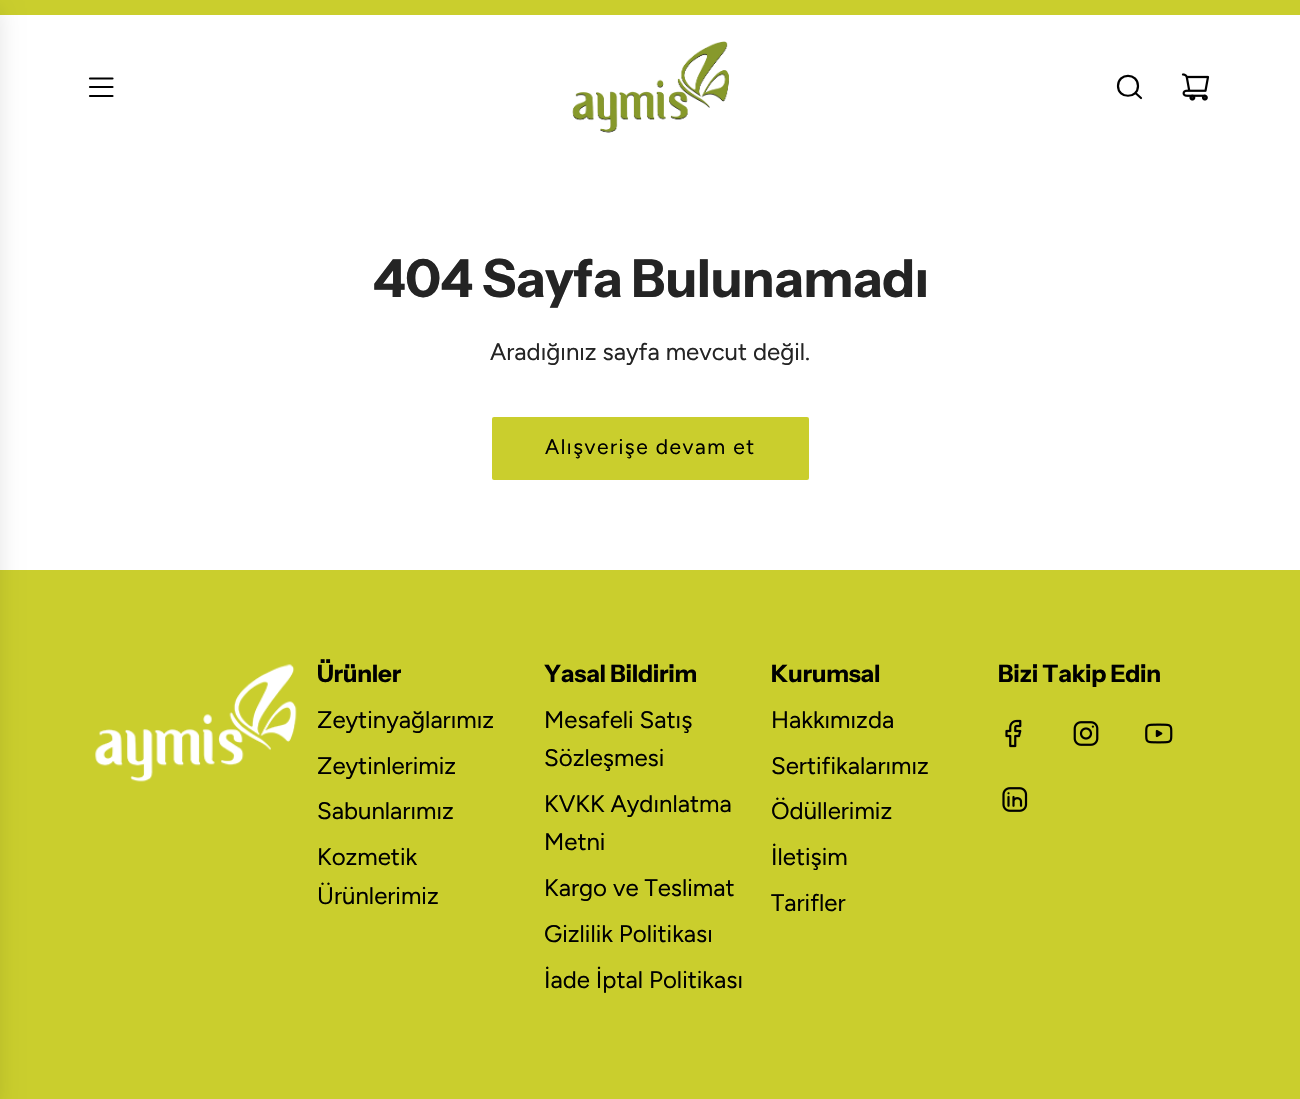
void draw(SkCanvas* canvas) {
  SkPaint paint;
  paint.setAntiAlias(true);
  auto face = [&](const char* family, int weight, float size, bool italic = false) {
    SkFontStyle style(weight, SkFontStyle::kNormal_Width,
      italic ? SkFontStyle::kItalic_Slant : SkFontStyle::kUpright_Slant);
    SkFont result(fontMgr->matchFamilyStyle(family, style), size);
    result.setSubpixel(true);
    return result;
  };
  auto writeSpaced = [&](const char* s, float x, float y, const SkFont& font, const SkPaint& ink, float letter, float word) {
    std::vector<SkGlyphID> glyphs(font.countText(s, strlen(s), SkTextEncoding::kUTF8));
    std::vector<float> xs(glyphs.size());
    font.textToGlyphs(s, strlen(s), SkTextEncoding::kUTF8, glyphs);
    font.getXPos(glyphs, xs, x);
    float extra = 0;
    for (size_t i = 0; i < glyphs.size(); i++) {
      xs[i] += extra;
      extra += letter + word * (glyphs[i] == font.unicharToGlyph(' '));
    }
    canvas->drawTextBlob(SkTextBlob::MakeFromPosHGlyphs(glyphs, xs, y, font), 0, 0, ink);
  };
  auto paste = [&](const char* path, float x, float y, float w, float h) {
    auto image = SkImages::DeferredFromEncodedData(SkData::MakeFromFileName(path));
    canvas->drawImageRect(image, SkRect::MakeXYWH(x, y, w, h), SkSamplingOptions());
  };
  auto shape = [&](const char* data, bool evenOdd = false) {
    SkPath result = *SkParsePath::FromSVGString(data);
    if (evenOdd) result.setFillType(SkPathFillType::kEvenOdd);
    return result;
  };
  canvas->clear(0xffffffff);
  paint.setColor(0xffcace2d);
  canvas->drawRect(SkRect::MakeXYWH(0, 0, 1300, 15), paint);
  canvas->drawRect(SkRect::MakeXYWH(0, 570, 1300, 529), paint);
  paint.setColor(0x1a000000);
  paint.setMaskFilter(SkMaskFilter::MakeBlur(kNormal_SkBlurStyle, 11));
  canvas->drawRect(SkRect::MakeXYWH(-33, 8, 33, 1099), paint);
  paint.setMaskFilter(nullptr);
  paint.setStroke(true);
  paint.setStrokeWidth(2.2f);
  paint.setStrokeCap(SkPaint::kRound_Cap);
  paint.setStrokeJoin(SkPaint::kRound_Join);
  paint.setColor(0xff000000);
  canvas->drawPath(shape("M90 78.5H112.5M90 87H112.5M90 96H112.5"), paint);
  paste("img/1.png", 572, 41, 157, 92);
  canvas->drawPath(shape("M1136 93.5L1141 98M1118 86C1118 99 1138 99 1138 86C1138 72.5 1118 72.5 1118 86Z"), paint);
  paste("img/2.png", 1181, 73, 29, 28);
  paint.setStroke(false);
  paint.setColor(0xffcace2d);
  canvas->drawRoundRect(SkRect::MakeXYWH(492, 417, 317, 63), 2, 2, paint);
  paste("img/3.png", 95, 664, 202, 118);
  paste("img/4.png", 1005, 719, 17, 29);
  paste("img/5.png", 1073, 721, 26, 25);
  paste("img/6.png", 1145, 723, 28, 21);
  paste("img/7.png", 1002, 787, 26, 25);
  auto f0 = face("Instrument Sans", 700, 52.5f);
  paint.setColor(0xff242424);
  writeSpaced("404 Sayfa Bulunamadı", 373, 297, f0, paint, -0.5f, 0);
  auto f1 = face("Figtree", 400, 24);
  canvas->drawString("Aradığınız sayfa mevcut değil.", 490, 360, f1, paint);
  auto f2 = face("Figtree", 400, 21);
  paint.setColor(0xff000000);
  writeSpaced("Alışverişe devam et", 545, 454, f2, paint, 1.5f, 0);
  auto f3 = face("Instrument Sans", 700, 24);
  writeSpaced("Ürünler", 317, 682, f3, paint, -0.25f, 0);
  {
    const struct { const char* s; float x, y; } items[] = {
      {"Zeytinyağlarımız", 317, 728},
      {"Zeytinlerimiz", 317, 774},
      {"Sabunlarımız", 317, 819},
      {"Kozmetik", 317, 865},
      {"Ürünlerimiz", 317, 904},
    };
    for (auto [s, x, y] : items) {
      canvas->drawString(s, x, y, f1, paint);
    }
  }
  writeSpaced("Yasal Bildirim", 544, 682, f3, paint, -0.25f, 0);
  {
    const struct { const char* s; float x, y; } items[] = {
      {"Mesafeli Satış", 544, 728},
      {"Sözleşmesi", 544, 766},
      {"KVKK Aydınlatma", 544, 812},
      {"Metni", 544, 850},
      {"Kargo ve Teslimat", 544, 896},
      {"Gizlilik Politikası", 544, 942},
      {"İade İptal Politikası", 544, 988},
    };
    for (auto [s, x, y] : items) {
      canvas->drawString(s, x, y, f1, paint);
    }
  }
  writeSpaced("Kurumsal", 771, 682, f3, paint, -0.25f, 0);
  {
    const struct { const char* s; float x, y; } items[] = {
      {"Hakkımızda", 771, 728},
      {"Sertifikalarımız", 771, 774},
      {"Ödüllerimiz", 771, 819},
      {"İletişim", 771, 865},
      {"Tarifler", 771, 911},
    };
    for (auto [s, x, y] : items) {
      canvas->drawString(s, x, y, f1, paint);
    }
  }
  writeSpaced("Bizi Takip Edin", 998, 682, f3, paint, -0.25f, 0);
}
